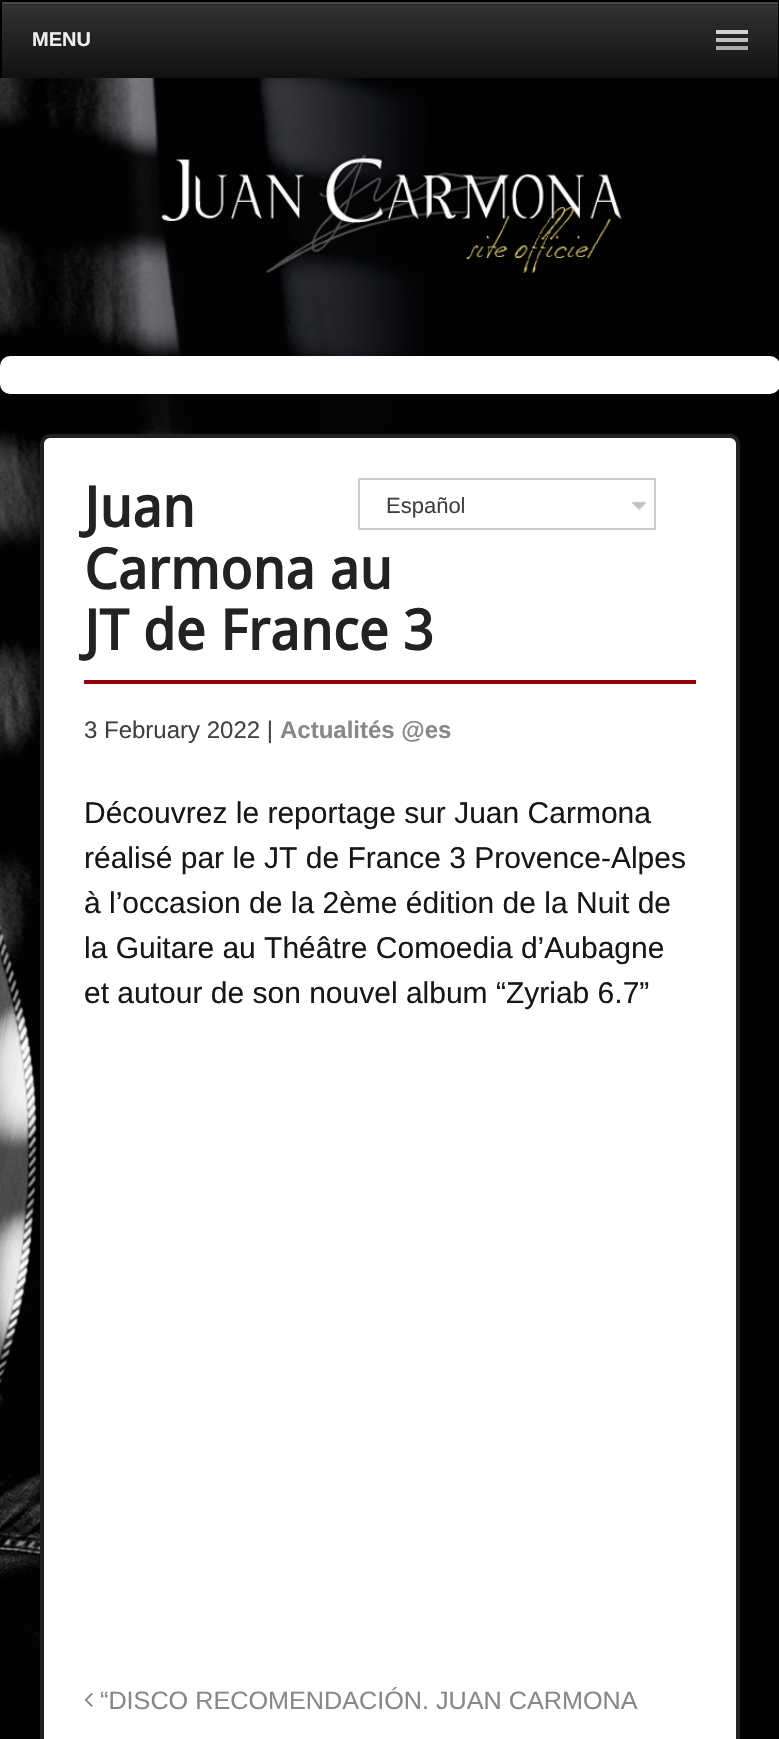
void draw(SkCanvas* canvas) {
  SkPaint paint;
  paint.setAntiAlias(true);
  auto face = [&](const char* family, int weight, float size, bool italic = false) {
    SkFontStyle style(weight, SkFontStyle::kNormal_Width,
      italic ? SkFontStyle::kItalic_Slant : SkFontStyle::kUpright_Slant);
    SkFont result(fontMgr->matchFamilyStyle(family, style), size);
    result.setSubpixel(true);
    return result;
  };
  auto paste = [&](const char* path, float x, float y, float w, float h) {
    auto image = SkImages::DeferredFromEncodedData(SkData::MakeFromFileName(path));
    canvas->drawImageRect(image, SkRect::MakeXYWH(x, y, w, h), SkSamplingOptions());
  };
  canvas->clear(0xffffffff);
  paste("img/1.png", 0, 78, 779, 1661);
  {
    const SkColor colors[] = {0xff333333, 0xff111111};
    const float stops[] = {0, 1};
    const SkPoint ends[] = {{390, 2}, {390, 78}};
    paint.setShader(SkGradientShader::MakeLinear(ends, colors, stops, 2, SkTileMode::kClamp));
    paint.setAlpha(255);
  }
  canvas->drawRect(SkRect::MakeXYWH(2, 4, 776, 74), paint);
  paint.setShader(nullptr);
  {
    const struct { float x, y, w, h; SkColor color; } items[] = {
      {2, 2, 776, 2, 0xff474747},
      {0, 0, 779, 2, 0xff000000},
      {778, 0, 1, 78, 0xff000000},
      {0, 0, 2, 78, 0xff000000},
      {716, 46, 32, 4, 0xffaaaaaa},
      {716, 30, 32, 4, 0xffd3d3d3},
      {716, 38, 32, 4, 0xffbfbfbf},
    };
    for (auto [x, y, w, h, color] : items) {
      paint.setColor(color);
      canvas->drawRect(SkRect::MakeXYWH(x, y, w, h), paint);
    }
  }
  paste("img/2.png", 161, 154, 461, 119);
  paint.setColor(0xffffffff);
  canvas->drawRoundRect(SkRect::MakeXYWH(2, 358, 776, 34), 8, 8, paint);
  paint.setStroke(true);
  paint.setStrokeWidth(4);
  canvas->drawRoundRect(SkRect::MakeXYWH(2, 358, 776, 34), 8, 8, paint);
  paint.setStroke(false);
  canvas->drawRoundRect(SkRect::MakeXYWH(42, 436, 696, 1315), 8, 8, paint);
  paint.setStroke(true);
  paint.setColor(0xff222222);
  canvas->drawRoundRect(SkRect::MakeXYWH(42, 436, 696, 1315), 8, 8, paint);
  paint.setStroke(false);
  paint.setColor(0xff96000a);
  canvas->drawRect(SkRect::MakeXYWH(84, 680, 612, 4), paint);
  paste("img/3.png", 84, 1693, 9, 14);
  paste("img/4.png", 631, 501, 16, 10);
  paint.setStroke(true);
  paint.setStrokeWidth(2);
  paint.setColor(0xffcdcdcd);
  canvas->drawRect(SkRect::MakeXYWH(359, 479, 296, 50), paint);
  auto f0 = face("Liberation Sans", 700, 20);
  paint.setStroke(false);
  paint.setColor(0xffeeeeee);
  canvas->drawString("MENU", 32, 46, f0, paint);
  auto f1 = face("Droid Sans", 700, 56);
  paint.setColor(0xff222222);
  {
    const struct { const char* s; float x, y; } items[] = {
      {"Juan", 84, 527},
      {"Carmona au", 84, 589},
      {"JT de France 3", 84, 650},
    };
    for (auto [s, x, y] : items) {
      canvas->drawString(s, x, y, f1, paint);
    }
  }
  auto f2 = face("Liberation Sans", 400, 24);
  paint.setColor(0xff404040);
  canvas->drawString("3 February 2022 |", 84, 738, f2, paint);
  auto f3 = face("Liberation Sans", 700, 24);
  paint.setColor(0xff888888);
  canvas->drawString("Actualités @es", 280, 738, f3, paint);
  auto f4 = face("Liberation Sans", 400, 30);
  paint.setColor(0xff171717);
  {
    const struct { const char* s; float x, y; } items[] = {
      {"Découvrez le reportage sur Juan Carmona", 84, 823},
      {"réalisé par le JT de France 3 Provence-Alpes", 84, 868},
      {"à l’occasion de la 2ème édition de la Nuit de", 84, 913},
      {"la Guitare au Théâtre Comoedia d’Aubagne", 84, 958},
      {"et autour de son nouvel album “Zyriab 6.7”", 84, 1003},
    };
    for (auto [s, x, y] : items) {
      canvas->drawString(s, x, y, f4, paint);
    }
  }
  auto f5 = face("Liberation Sans", 400, 25.2f);
  paint.setColor(0xff888888);
  canvas->drawString("“DISCO RECOMENDACIÓN. JUAN CARMONA", 100, 1709, f5, paint);
  auto f6 = face("Liberation Sans", 400, 22);
  paint.setColor(0xff404040);
  canvas->drawString("Español", 386, 513, f6, paint);
}
